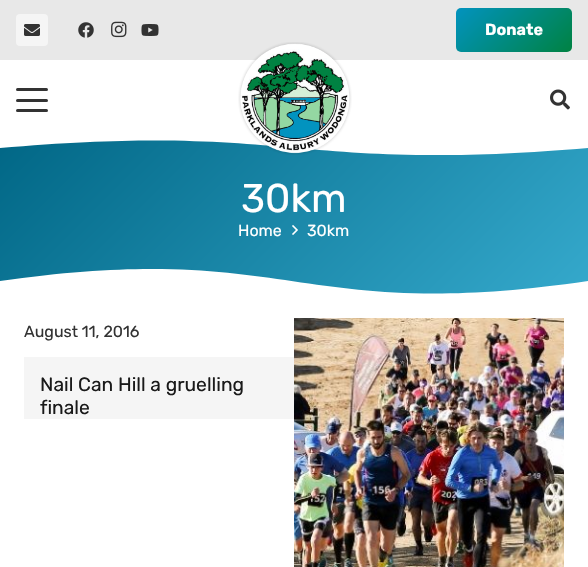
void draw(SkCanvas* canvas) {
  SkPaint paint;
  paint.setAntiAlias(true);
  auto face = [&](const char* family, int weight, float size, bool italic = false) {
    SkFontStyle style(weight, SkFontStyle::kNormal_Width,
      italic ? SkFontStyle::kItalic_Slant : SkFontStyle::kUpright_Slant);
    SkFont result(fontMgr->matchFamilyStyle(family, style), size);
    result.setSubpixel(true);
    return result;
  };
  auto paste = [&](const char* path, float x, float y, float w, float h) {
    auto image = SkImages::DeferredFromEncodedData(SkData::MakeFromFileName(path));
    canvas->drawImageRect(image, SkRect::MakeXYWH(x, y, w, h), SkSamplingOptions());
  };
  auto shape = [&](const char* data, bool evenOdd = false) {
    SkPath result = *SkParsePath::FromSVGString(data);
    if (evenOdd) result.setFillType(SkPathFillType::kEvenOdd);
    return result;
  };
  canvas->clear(0xffffffff);
  paint.setColor(0xffe8e8e8);
  canvas->drawRect(SkRect::MakeXYWH(0, 0, 588, 60), paint);
  paint.setColor(0xfff5f5f5);
  canvas->drawRoundRect(SkRect::MakeXYWH(16, 14, 32, 32), 4, 4, paint);
  paste("img/1.png", 24, 24, 16, 12);
  paste("img/2.png", 78, 22, 16, 16);
  paste("img/3.png", 111, 21, 16, 17);
  paste("img/4.png", 141, 24, 18, 12);
  {
    const SkColor colors[] = {0xff0293bf, 0xff008242};
    const float stops[] = {0, 1};
    const SkPoint ends[] = {{474, -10}, {554, 70}};
    paint.setShader(SkGradientShader::MakeLinear(ends, colors, stops, 2, SkTileMode::kClamp));
    paint.setAlpha(255);
  }
  canvas->drawRoundRect(SkRect::MakeXYWH(456, 8, 116, 44), 5, 5, paint);
  paint.setShader(nullptr);
  paint.setColor(0xff333333);
  canvas->drawRoundRect(SkRect::MakeXYWH(16, 99, 32, 3), 1.5f, 1.5f, paint);
  canvas->drawRoundRect(SkRect::MakeXYWH(16, 88, 32, 3), 1.5f, 1.5f, paint);
  canvas->drawRoundRect(SkRect::MakeXYWH(16, 109, 32, 3), 1.5f, 1.5f, paint);
  {
    const SkColor colors[] = {0xff016786, 0xff35a9cc};
    const float stops[] = {0, 1};
    const SkPoint ends[] = {{108, 32}, {480, 403}};
    paint.setShader(SkGradientShader::MakeLinear(ends, colors, stops, 2, SkTileMode::kClamp));
    paint.setAlpha(255);
  }
  canvas->drawRect(SkRect::MakeXYWH(0, 140, 588, 154), paint);
  paint.setShader(nullptr);
  paint.setColor(0xffffffff);
  canvas->drawPath(shape("M588 148C294 173 294 122 0 148V139H588Z"), paint);
  paste("img/5.png", 238, 42, 114, 113);
  paste("img/6.png", 550, 89, 20, 21);
  paste("img/7.png", 292, 225, 6, 10);
  canvas->drawPath(shape("M0 281C294 239 294 324 588 281V295H0Z"), paint);
  paint.setColor(0xfff5f5f5);
  canvas->drawRect(SkRect::MakeXYWH(24, 357, 270, 62), paint);
  paste("img/8.png", 294, 318, 270, 249);
  auto f0 = face("Rubik", 700, 16);
  paint.setColor(0xffffffff);
  canvas->drawString("Donate", 485, 35, f0, paint);
  auto f1 = face("Rubik", 400, 40);
  canvas->drawString("30km", 241, 212, f1, paint);
  auto f2 = face("Rubik", 400, 16);
  canvas->drawString("Home", 238, 236, f2, paint);
  canvas->drawString("30km", 307, 236, f2, paint);
  paint.setColor(0xff333333);
  canvas->drawString("August 11, 2016", 24, 337, f2, paint);
  auto f3 = face("Rubik", 400, 19.25f);
  paint.setColor(0xff1a1a1a);
  canvas->drawString("Nail Can Hill a gruelling", 40, 391, f3, paint);
  canvas->drawString("finale", 40, 414, f3, paint);
}
